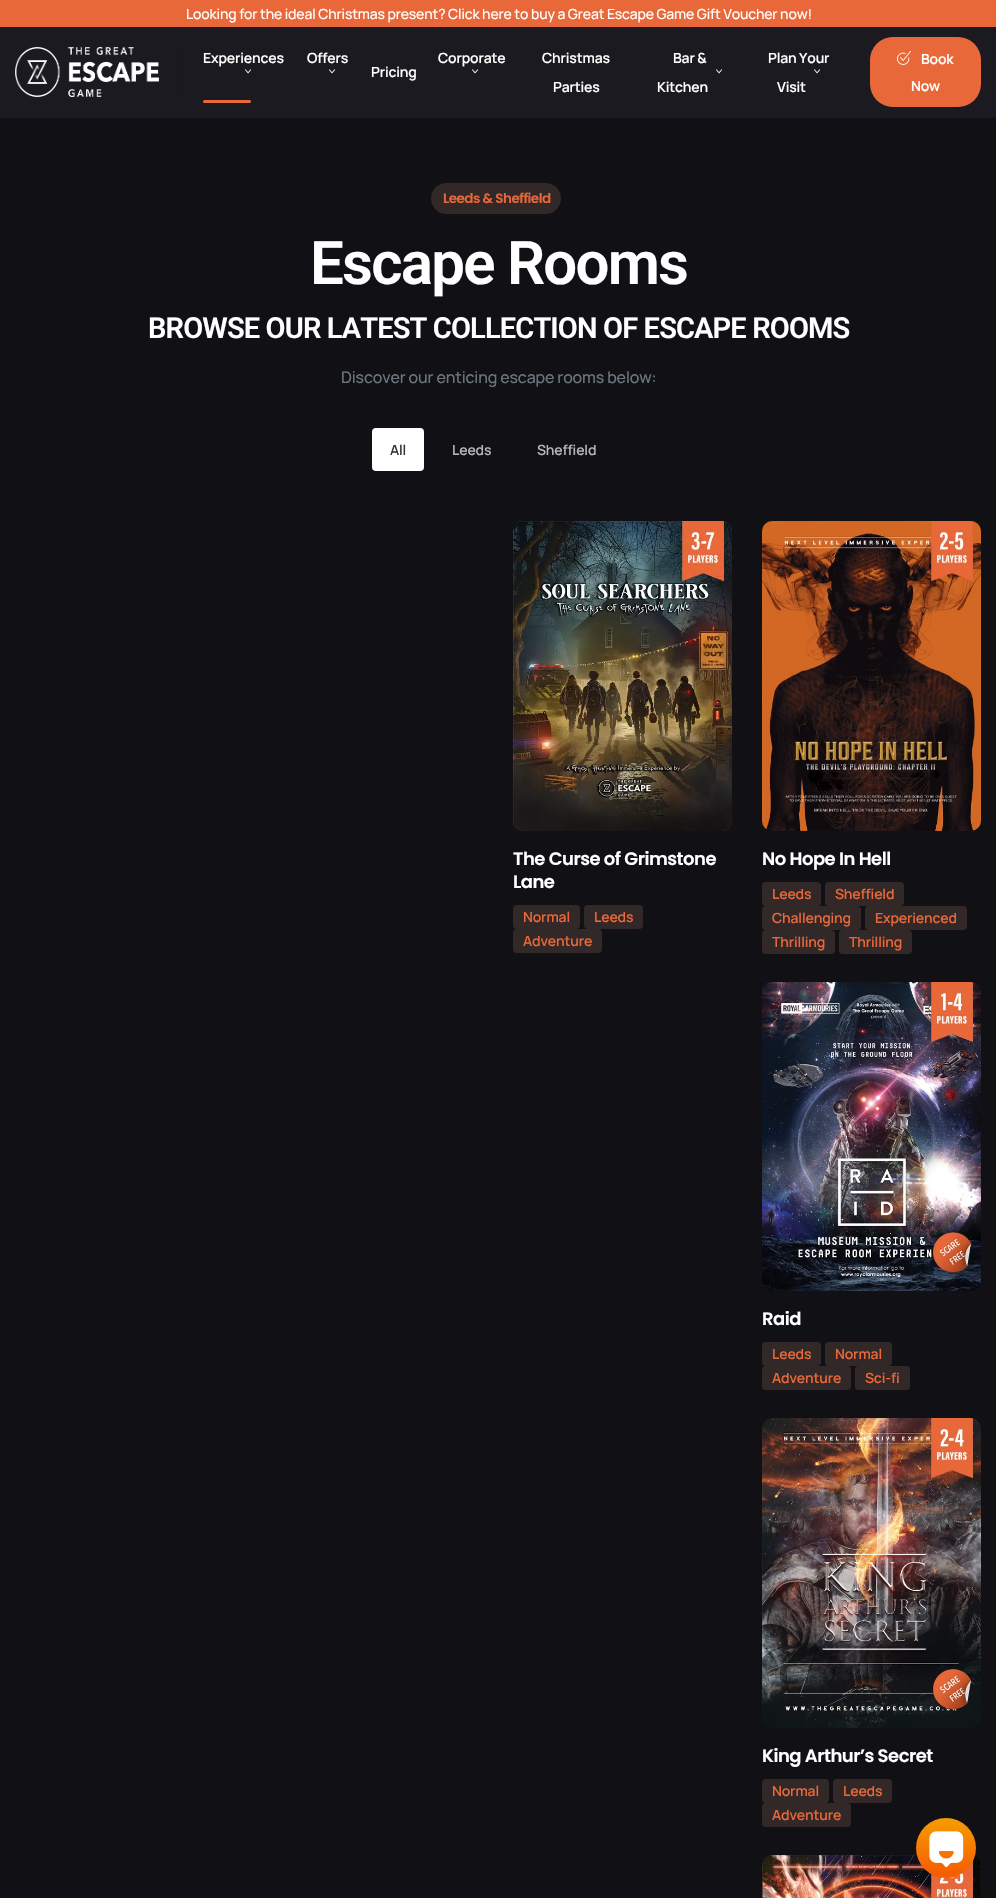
void draw(SkCanvas* canvas) {
  SkPaint paint;
  paint.setAntiAlias(true);
  auto face = [&](const char* family, int weight, float size, bool italic = false) {
    SkFontStyle style(weight, SkFontStyle::kNormal_Width,
      italic ? SkFontStyle::kItalic_Slant : SkFontStyle::kUpright_Slant);
    SkFont result(fontMgr->matchFamilyStyle(family, style), size);
    result.setSubpixel(true);
    return result;
  };
  auto writeSpaced = [&](const char* s, float x, float y, const SkFont& font, const SkPaint& ink, float letter, float word) {
    std::vector<SkGlyphID> glyphs(font.countText(s, strlen(s), SkTextEncoding::kUTF8));
    std::vector<float> xs(glyphs.size());
    font.textToGlyphs(s, strlen(s), SkTextEncoding::kUTF8, glyphs);
    font.getXPos(glyphs, xs, x);
    float extra = 0;
    for (size_t i = 0; i < glyphs.size(); i++) {
      xs[i] += extra;
      extra += letter + word * (glyphs[i] == font.unicharToGlyph(' '));
    }
    canvas->drawTextBlob(SkTextBlob::MakeFromPosHGlyphs(glyphs, xs, y, font), 0, 0, ink);
  };
  auto paste = [&](const char* path, float x, float y, float w, float h) {
    auto image = SkImages::DeferredFromEncodedData(SkData::MakeFromFileName(path));
    canvas->drawImageRect(image, SkRect::MakeXYWH(x, y, w, h), SkSamplingOptions());
  };
  canvas->clear(0xff101015);
  paint.setColor(0xffe86839);
  canvas->drawRect(SkRect::MakeXYWH(0, 0, 996, 27), paint);
  paint.setColor(0xff1a1a20);
  canvas->drawRect(SkRect::MakeXYWH(0, 27, 996, 90), paint);
  paste("img/1.png", 15, 47, 144, 50);
  paint.setColor(0xff18181d);
  canvas->drawRect(SkRect::MakeXYWH(180, 50, 1, 44), paint);
  paste("img/2.png", 245, 69, 7, 5);
  paint.setColor(0xffe86839);
  canvas->drawRoundRect(SkRect::MakeXYWH(203, 100, 48, 3), 1.5f, 1.5f, paint);
  paste("img/2.png", 329, 69, 7, 5);
  paste("img/2.png", 472, 69, 7, 5);
  paste("img/2.png", 716, 69, 7, 5);
  paste("img/2.png", 814, 69, 7, 5);
  canvas->drawRoundRect(SkRect::MakeXYWH(870, 37, 111, 70), 23, 23, paint);
  paste("img/3.png", 897, 50, 14, 15);
  paint.setColor(0xff18181d);
  canvas->drawRect(SkRect::MakeXYWH(0, 117, 996, 1), paint);
  paint.setColor(0xff322828);
  canvas->drawRoundRect(SkRect::MakeXYWH(431, 183, 130, 31), 15.5f, 15.5f, paint);
  paint.setColor(0xffffffff);
  canvas->drawRoundRect(SkRect::MakeXYWH(372, 428, 52, 43), 4, 4, paint);
  paint.setColor(0xff4d4336);
  canvas->drawRoundRect(SkRect::MakeXYWH(513, 521, 219, 310), 10, 10, paint);
  paste("img/4.png", 513, 521, 219, 310);
  paint.setColor(0xff322828);
  canvas->drawRoundRect(SkRect::MakeXYWH(513, 905, 67, 24), 4, 4, paint);
  canvas->drawRoundRect(SkRect::MakeXYWH(584, 905, 59, 24), 4, 4, paint);
  canvas->drawRoundRect(SkRect::MakeXYWH(513, 929, 89, 24), 4, 4, paint);
  paste("img/5.png", 762, 521, 219, 310);
  canvas->drawRoundRect(SkRect::MakeXYWH(762, 882, 59, 24), 4, 4, paint);
  canvas->drawRoundRect(SkRect::MakeXYWH(825, 882, 79, 24), 4, 4, paint);
  canvas->drawRoundRect(SkRect::MakeXYWH(762, 906, 99, 24), 4, 4, paint);
  canvas->drawRoundRect(SkRect::MakeXYWH(865, 906, 102, 24), 4, 4, paint);
  canvas->drawRoundRect(SkRect::MakeXYWH(762, 930, 73, 24), 4, 4, paint);
  canvas->drawRoundRect(SkRect::MakeXYWH(839, 930, 73, 24), 4, 4, paint);
  paste("img/6.png", 762, 982, 219, 309);
  canvas->drawRoundRect(SkRect::MakeXYWH(762, 1342, 59, 24), 4, 4, paint);
  canvas->drawRoundRect(SkRect::MakeXYWH(825, 1342, 67, 24), 4, 4, paint);
  canvas->drawRoundRect(SkRect::MakeXYWH(762, 1366, 89, 24), 4, 4, paint);
  canvas->drawRoundRect(SkRect::MakeXYWH(855, 1366, 55, 24), 4, 4, paint);
  paste("img/7.png", 762, 1418, 219, 310);
  canvas->drawRoundRect(SkRect::MakeXYWH(762, 1779, 67, 24), 4, 4, paint);
  canvas->drawRoundRect(SkRect::MakeXYWH(833, 1779, 59, 24), 4, 4, paint);
  canvas->drawRoundRect(SkRect::MakeXYWH(762, 1803, 89, 24), 4, 4, paint);
  paste("img/8.png", 762, 1855, 219, 43);
  {
    const SkColor colors[] = {0xfff69d01, 0xfff65901};
    const float stops[] = {0, 1};
    const SkPoint ends[] = {{946, 1818}, {946, 1878}};
    paint.setShader(SkGradientShader::MakeLinear(ends, colors, stops, 2, SkTileMode::kClamp));
    paint.setAlpha(255);
  }
  canvas->drawCircle(946, 1848, 30, paint);
  paste("img/9.png", 929, 1831, 35, 37);
  auto f0 = face("Manrope", 500, 14);
  paint.setShader(nullptr);
  paint.setColor(0xffffffff);
  writeSpaced("Looking for the ideal Christmas present? Click here to buy a Great Escape Game Gift Voucher now!", 186, 19, f0, paint, -0.15f, 0);
  auto f1 = face("Manrope", 600, 14);
  {
    const struct { const char* s; float x, y; } items[] = {
      {"Experiences", 203, 63},
      {"Offers", 307, 63},
      {"Pricing", 371, 77},
      {"Corporate", 438, 63},
      {"Christmas", 542, 63},
      {"Parties", 553, 92},
      {"Bar &", 673, 63},
      {"Kitchen", 657, 92},
      {"Plan Your", 768, 63},
      {"Visit", 777, 92},
      {"Book", 921, 64},
      {"Now", 911, 91},
    };
    for (auto [s, x, y] : items) {
      writeSpaced(s, x, y, f1, paint, -0.15f, 0);
    }
  }
  auto f2 = face("Poppins", 600, 13.5f);
  paint.setColor(0xffe86839);
  writeSpaced("Leeds & Sheffield", 443, 203, f2, paint, -0.5f, 0);
  auto f3 = face("Roboto", 600, 60);
  paint.setColor(0xffffffff);
  writeSpaced("Escape Rooms", 310, 284, f3, paint, -1.75f, 0);
  auto f4 = face("Roboto", 600, 29);
  writeSpaced("BROWSE OUR LATEST COLLECTION OF ESCAPE ROOMS", 148, 338, f4, paint, -0.85f, 0);
  auto f5 = face("Manrope", 500, 16);
  paint.setColor(0xff6c757d);
  writeSpaced("Discover our enticing escape rooms below:", 341, 383, f5, paint, -0.15f, 0);
  paint.setColor(0xff343a40);
  writeSpaced("All", 390, 455, f1, paint, -0.15f, 0);
  paint.setColor(0xffb7b7b9);
  writeSpaced("Leeds", 452, 455, f1, paint, -0.15f, 0);
  writeSpaced("Sheffield", 537, 455, f1, paint, -0.15f, 0);
  auto f6 = face("Poppins", 600, 18);
  paint.setColor(0xffffffff);
  writeSpaced("The Curse of Grimstone", 513, 865, f6, paint, -0.5f, 0);
  writeSpaced("Lane", 513, 888, f6, paint, -0.5f, 0);
  paint.setColor(0xffe86839);
  {
    const struct { const char* s; float x, y; } items[] = {
      {"Normal", 523, 922},
      {"Leeds", 594, 922},
      {"Adventure", 523, 946},
    };
    for (auto [s, x, y] : items) {
      writeSpaced(s, x, y, f1, paint, -0.15f, 0);
    }
  }
  paint.setColor(0xffffffff);
  writeSpaced("No Hope In Hell", 762, 865, f6, paint, -0.5f, 0);
  paint.setColor(0xffe86839);
  {
    const struct { const char* s; float x, y; } items[] = {
      {"Leeds", 772, 899},
      {"Sheffield", 835, 899},
      {"Challenging", 772, 923},
      {"Experienced", 875, 923},
      {"Thrilling", 772, 947},
      {"Thrilling", 849, 947},
    };
    for (auto [s, x, y] : items) {
      writeSpaced(s, x, y, f1, paint, -0.15f, 0);
    }
  }
  paint.setColor(0xffffffff);
  writeSpaced("Raid", 762, 1325, f6, paint, -0.5f, 0);
  paint.setColor(0xffe86839);
  {
    const struct { const char* s; float x, y; } items[] = {
      {"Leeds", 772, 1359},
      {"Normal", 835, 1359},
      {"Adventure", 772, 1383},
      {"Sci-fi", 865, 1383},
    };
    for (auto [s, x, y] : items) {
      writeSpaced(s, x, y, f1, paint, -0.15f, 0);
    }
  }
  paint.setColor(0xffffffff);
  writeSpaced("King Arthur’s Secret", 762, 1762, f6, paint, -0.5f, 0);
  paint.setColor(0xffe86839);
  {
    const struct { const char* s; float x, y; } items[] = {
      {"Normal", 772, 1796},
      {"Leeds", 843, 1796},
      {"Adventure", 772, 1820},
    };
    for (auto [s, x, y] : items) {
      writeSpaced(s, x, y, f1, paint, -0.15f, 0);
    }
  }
}
